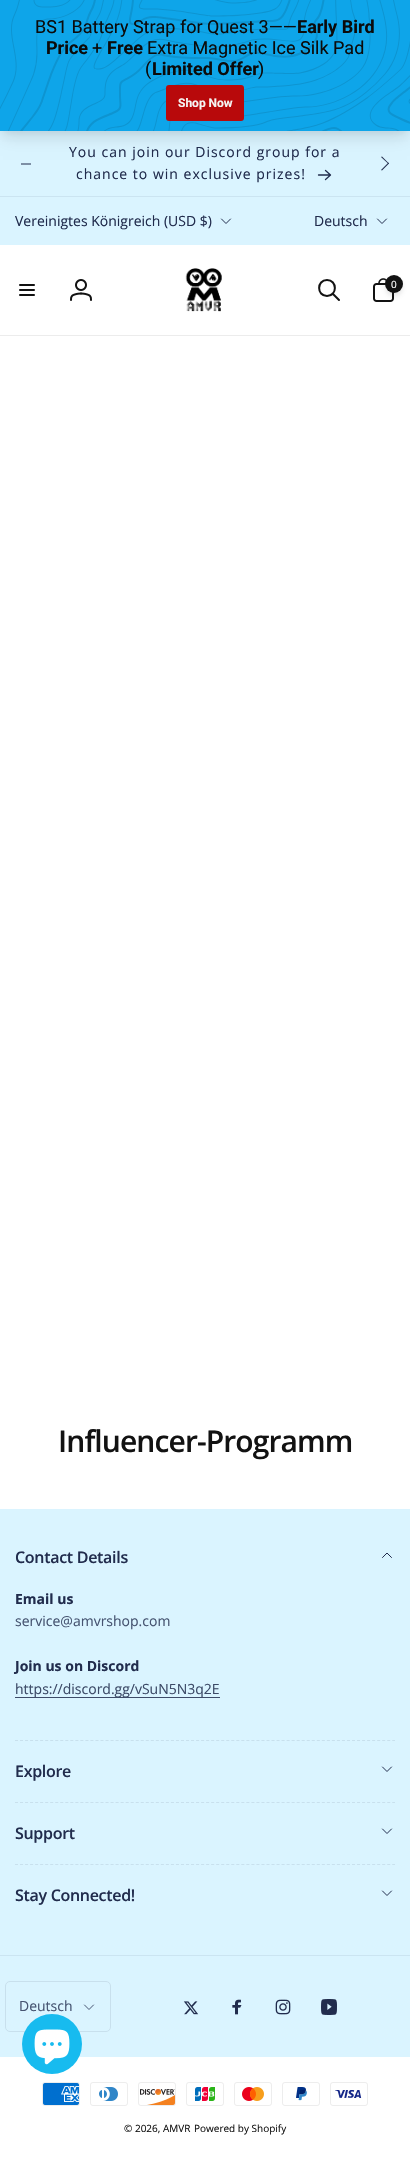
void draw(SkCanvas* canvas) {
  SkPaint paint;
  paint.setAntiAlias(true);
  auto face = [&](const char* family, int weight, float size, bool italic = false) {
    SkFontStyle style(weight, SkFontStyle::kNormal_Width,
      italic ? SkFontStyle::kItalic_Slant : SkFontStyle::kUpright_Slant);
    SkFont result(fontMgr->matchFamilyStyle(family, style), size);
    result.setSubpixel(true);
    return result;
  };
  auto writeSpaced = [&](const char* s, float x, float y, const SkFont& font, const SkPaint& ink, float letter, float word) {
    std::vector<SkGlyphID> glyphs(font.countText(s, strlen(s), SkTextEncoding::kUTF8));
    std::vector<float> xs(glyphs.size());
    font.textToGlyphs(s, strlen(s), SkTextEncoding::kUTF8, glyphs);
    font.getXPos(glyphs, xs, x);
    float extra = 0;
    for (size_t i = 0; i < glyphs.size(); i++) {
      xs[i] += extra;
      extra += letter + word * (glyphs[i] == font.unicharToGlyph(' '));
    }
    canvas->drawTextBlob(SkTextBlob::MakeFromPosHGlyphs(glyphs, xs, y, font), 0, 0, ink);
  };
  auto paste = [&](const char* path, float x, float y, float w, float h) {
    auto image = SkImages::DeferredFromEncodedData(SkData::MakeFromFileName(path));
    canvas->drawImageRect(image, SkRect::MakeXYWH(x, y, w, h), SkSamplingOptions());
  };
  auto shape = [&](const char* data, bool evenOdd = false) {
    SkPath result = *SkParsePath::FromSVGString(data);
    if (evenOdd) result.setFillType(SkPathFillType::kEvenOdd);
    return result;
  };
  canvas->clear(0xffffffff);
  paint.setColor(0xffdaf4ff);
  canvas->drawRect(SkRect::MakeXYWH(0, 131, 410, 65), paint);
  paint.setColor(0x0d000000);
  paint.setMaskFilter(SkMaskFilter::MakeBlur(kNormal_SkBlurStyle, 3));
  canvas->drawRect(SkRect::MakeXYWH(2, 6, 406, 127), paint);
  paint.setMaskFilter(nullptr);
  paint.setColor(0xff212c4d);
  canvas->drawPath(shape("M381 157L382 156.5L389 163.5L388.5 164Z"), paint);
  paint.setColor(0x1a000000);
  paint.setMaskFilter(SkMaskFilter::MakeBlur(kNormal_SkBlurStyle, 7.5f));
  canvas->drawRect(SkRect::MakeXYWH(3, 13, 404, 125), paint);
  paint.setMaskFilter(nullptr);
  paint.setColor(0xff0ea5e9);
  canvas->drawRect(SkRect::MakeXYWH(0, 0, 410, 131), paint);
  paste("img/1.png", 0, 0, 410, 131);
  paint.setColor(0xffb8090b);
  canvas->drawRoundRect(SkRect::MakeXYWH(166, 85, 78, 36), 3, 3, paint);
  paint.setColor(0xffcbe4f1);
  canvas->drawRect(SkRect::MakeXYWH(0, 196, 410, 1), paint);
  paint.setColor(0xff7e90a6);
  canvas->drawRect(SkRect::MakeXYWH(21, 163, 10, 2), paint);
  paint.setStroke(true);
  paint.setStrokeWidth(1.3f);
  paint.setStrokeCap(SkPaint::kRound_Cap);
  paint.setStrokeJoin(SkPaint::kRound_Join);
  paint.setColor(0xff212c4d);
  canvas->drawPath(shape("M325.5 170.5L330.5 175M330.5 175L325.5 179.5M330.5 175H318.5"), paint);
  paint.setStroke(false);
  canvas->drawPath(shape("M388.5 162.5L389 163.5L382 170.5L381 170Z"), paint);
  paint.setColor(0xffdaf4ff);
  canvas->drawRect(SkRect::MakeXYWH(0, 197, 410, 48), paint);
  paint.setStroke(true);
  paint.setStrokeWidth(1);
  paint.setColor(0xff212c4d);
  canvas->drawPath(shape("M230.5 219L226 223.5L221.5 219"), paint);
  canvas->drawPath(shape("M386.5 219L382 223.5L377.5 219"), paint);
  paint.setStroke(false);
  paint.setColor(0xffececec);
  canvas->drawRect(SkRect::MakeXYWH(0, 335, 410, 1), paint);
  paste("img/2.png", 19, 284, 16, 12);
  paste("img/3.png", 70, 279, 22, 22);
  paste("img/4.png", 185, 268, 37, 44);
  paint.setStroke(true);
  paint.setStrokeWidth(2);
  paint.setColor(0xff121212);
  canvas->drawPath(shape("M339 300L332.5 293.5M327 296C337.5 296 337.5 280 327 280C316.5 280 316.5 296 327 296Z"), paint);
  paste("img/5.png", 373, 278, 21, 24);
  paint.setStroke(false);
  paint.setColor(0x0f121212);
  paint.setMaskFilter(SkMaskFilter::MakeBlur(kNormal_SkBlurStyle, 2));
  canvas->drawRoundRect(SkRect::MakeXYWH(386, 278, 16, 16), 8, 8, paint);
  paint.setMaskFilter(nullptr);
  paint.setColor(0x1a121212);
  paint.setMaskFilter(SkMaskFilter::MakeBlur(kNormal_SkBlurStyle, 3));
  canvas->drawRoundRect(SkRect::MakeXYWH(386, 280, 16, 16), 8, 8, paint);
  paint.setMaskFilter(nullptr);
  paint.setColor(0xff121212);
  canvas->drawCircle(394, 284, 9, paint);
  paint.setColor(0xffdaf4ff);
  canvas->drawRect(SkRect::MakeXYWH(0, 1509, 410, 548), paint);
  paint.setStroke(true);
  paint.setStrokeWidth(1);
  paint.setStrokeCap(SkPaint::kButt_Cap);
  paint.setStrokeJoin(SkPaint::kMiter_Join);
  paint.setColor(0xffc8e0ed);
  paint.setPathEffect(SkDashPathEffect::Make({{3, 2.03f}}, 0));
  canvas->drawPath(shape("M15 1740.5H395"), paint);
  paint.setPathEffect(nullptr);
  paint.setStrokeCap(SkPaint::kRound_Cap);
  paint.setStrokeJoin(SkPaint::kRound_Join);
  paint.setColor(0xff212c4d);
  canvas->drawPath(shape("M382.5 1557.5L387 1553L391.5 1557.5"), paint);
  paint.setStroke(false);
  paint.setColor(0xff3d4a68);
  canvas->drawRect(SkRect::MakeXYWH(15, 1697, 205, 1), paint);
  paint.setStroke(true);
  paint.setStrokeCap(SkPaint::kButt_Cap);
  paint.setStrokeJoin(SkPaint::kMiter_Join);
  paint.setColor(0xffc8e0ed);
  paint.setPathEffect(SkDashPathEffect::Make({{3, 2.03f}}, 0));
  canvas->drawPath(shape("M15 1802.5H395"), paint);
  paint.setPathEffect(nullptr);
  paint.setStrokeCap(SkPaint::kRound_Cap);
  paint.setStrokeJoin(SkPaint::kRound_Join);
  paint.setColor(0xff212c4d);
  canvas->drawPath(shape("M391.5 1767L387 1771.5L382.5 1767"), paint);
  paint.setStrokeCap(SkPaint::kButt_Cap);
  paint.setStrokeJoin(SkPaint::kMiter_Join);
  paint.setColor(0xffc8e0ed);
  paint.setPathEffect(SkDashPathEffect::Make({{3, 2.03f}}, 0));
  canvas->drawPath(shape("M15 1864.5H395"), paint);
  paint.setPathEffect(nullptr);
  paint.setStrokeCap(SkPaint::kRound_Cap);
  paint.setStrokeJoin(SkPaint::kRound_Join);
  paint.setColor(0xff212c4d);
  canvas->drawPath(shape("M391.5 1829L387 1833.5L382.5 1829"), paint);
  canvas->drawPath(shape("M391.5 1891L387 1895.5L382.5 1891"), paint);
  paint.setStroke(false);
  paint.setColor(0xffcbe4f1);
  canvas->drawRect(SkRect::MakeXYWH(0, 1955, 410, 1), paint);
  paint.setStroke(true);
  paint.setStrokeCap(SkPaint::kButt_Cap);
  paint.setStrokeJoin(SkPaint::kMiter_Join);
  paint.setColor(0xffc8e0ed);
  canvas->drawRoundRect(SkRect::MakeXYWH(5.5f, 1981.5f, 105, 50), 4.5f, 4.5f, paint);
  paint.setStrokeCap(SkPaint::kRound_Cap);
  paint.setStrokeJoin(SkPaint::kRound_Join);
  paint.setColor(0xff465471);
  canvas->drawPath(shape("M93.5 2005L89 2009.5L84.5 2005"), paint);
  paste("img/6.png", 183, 2001, 16, 14);
  paste("img/7.png", 232, 1999, 10, 16);
  paste("img/8.png", 275, 1999, 16, 16);
  paste("img/9.png", 321, 1999, 16, 16);
  paste("img/10.png", 42, 2082, 38, 24);
  paste("img/11.png", 90, 2082, 38, 24);
  paste("img/12.png", 138, 2082, 38, 24);
  paste("img/13.png", 186, 2082, 38, 24);
  paste("img/14.png", 234, 2082, 38, 24);
  paste("img/15.png", 282, 2082, 38, 24);
  paste("img/16.png", 330, 2082, 38, 24);
  paint.setStroke(false);
  paint.setColor(0xff17bbef);
  canvas->drawCircle(52, 2044, 30, paint);
  paste("img/17.png", 34, 2029, 36, 36);
  auto f0 = face("Roboto", 400, 18);
  paint.setColor(0xff0b0b0b);
  canvas->drawString("BS1 Battery Strap for Quest 3——", 35, 33, f0, paint);
  auto f1 = face("Roboto", 700, 18);
  canvas->drawString("Early Bird", 297, 33, f1, paint);
  canvas->drawString("Price", 46, 54, f1, paint);
  canvas->drawString("+", 92, 54, f0, paint);
  canvas->drawString("Free", 107, 54, f1, paint);
  canvas->drawString("Extra Magnetic Ice Silk Pad", 147, 54, f0, paint);
  canvas->drawString("(", 145, 75, f0, paint);
  canvas->drawString("Limited Offer", 152, 75, f1, paint);
  canvas->drawString(")", 258, 75, f0, paint);
  auto f2 = face("Roboto", 700, 12);
  paint.setColor(0xfff5f5f4);
  canvas->drawString("Shop Now", 178, 107, f2, paint);
  auto f3 = face("Open Sans", 400, 14);
  paint.setColor(0xff212c4d);
  writeSpaced("You can join our Discord group for a", 69, 157, f3, paint, 1, 0);
  writeSpaced("chance to win exclusive prizes!", 76, 179, f3, paint, 1, 0);
  canvas->drawString("Vereinigtes Königreich (USD $)", 15, 226, f3, paint);
  canvas->drawString("Deutsch", 314, 226, f3, paint);
  auto f4 = face("Open Sans", 400, 10);
  paint.setColor(0xffffffff);
  canvas->drawString("0", 391, 288, f4, paint);
  auto f5 = face("Open Sans", 600, 30);
  paint.setColor(0xff121212);
  writeSpaced("Influencer-Programm", 58, 1452, f5, paint, -0.9f, 0);
  auto f6 = face("Open Sans", 600, 16);
  paint.setColor(0xff212c4d);
  writeSpaced("Contact Details", 15, 1563, f6, paint, -0.3f, 0);
  auto f7 = face("Open Sans", 700, 14);
  canvas->drawString("Email us", 15, 1604, f7, paint);
  paint.setColor(0xff465471);
  canvas->drawString("service@amvrshop.com", 15, 1626, f3, paint);
  paint.setColor(0xff212c4d);
  canvas->drawString("Join us on Discord", 15, 1671, f7, paint);
  paint.setColor(0xff3c4a67);
  canvas->drawString("https://discord.gg/vSuN5N3q2E", 15, 1694, f3, paint);
  paint.setColor(0xff212c4d);
  {
    const struct { const char* s; float x, y; } items[] = {
      {"Explore", 15, 1777},
      {"Support", 15, 1839},
      {"Stay Connected!", 15, 1901},
    };
    for (auto [s, x, y] : items) {
      writeSpaced(s, x, y, f6, paint, -0.3f, 0);
    }
  }
  paint.setColor(0xff465471);
  canvas->drawString("Deutsch", 19, 2011, f3, paint);
  paint.setColor(0xff121212);
  canvas->drawString("© 2026, AMVR", 124, 2132, f4, paint);
  canvas->drawString("Powered by Shopify", 194, 2132, f4, paint);
}
